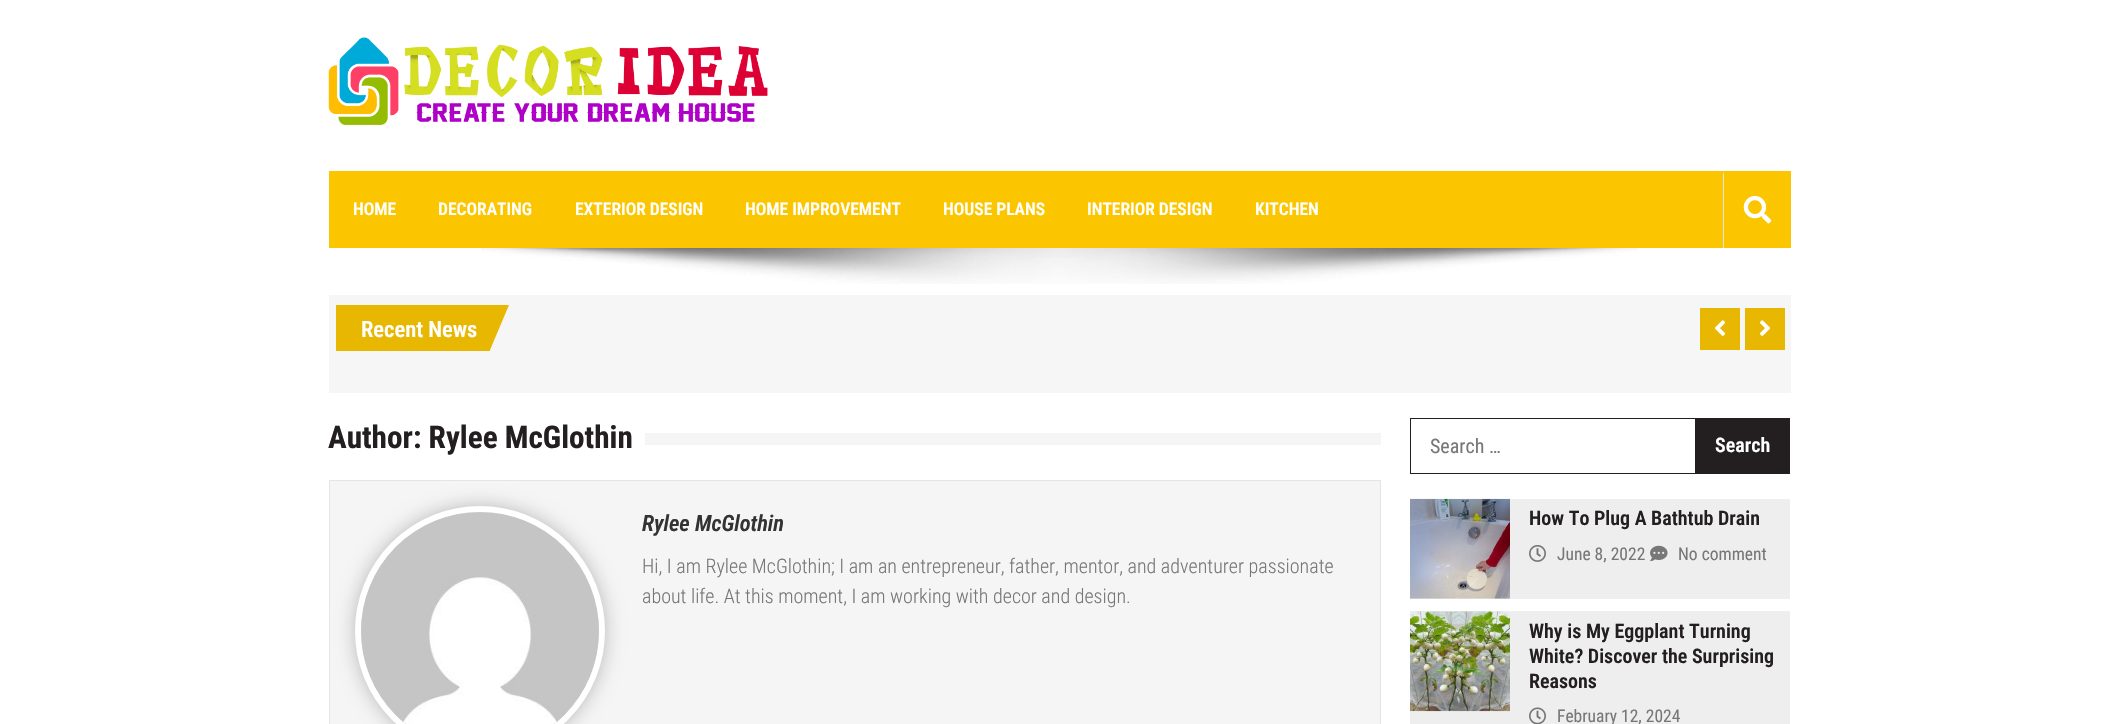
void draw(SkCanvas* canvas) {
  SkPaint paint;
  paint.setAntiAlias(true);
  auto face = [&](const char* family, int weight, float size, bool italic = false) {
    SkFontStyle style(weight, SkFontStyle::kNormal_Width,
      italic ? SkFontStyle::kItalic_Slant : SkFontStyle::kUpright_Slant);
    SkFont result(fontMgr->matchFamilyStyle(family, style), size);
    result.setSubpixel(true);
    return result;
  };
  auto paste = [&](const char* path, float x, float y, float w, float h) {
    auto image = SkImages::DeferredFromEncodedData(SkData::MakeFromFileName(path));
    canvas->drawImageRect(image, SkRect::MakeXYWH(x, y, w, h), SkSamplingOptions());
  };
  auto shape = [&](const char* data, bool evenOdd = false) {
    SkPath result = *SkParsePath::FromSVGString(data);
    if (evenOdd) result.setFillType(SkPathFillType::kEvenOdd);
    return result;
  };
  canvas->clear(0xffffffff);
  paste("img/1.png", 328, 37, 440, 88);
  paint.setColor(0xfffbc600);
  canvas->drawRect(SkRect::MakeXYWH(329, 171, 1462, 77), paint);
  paint.setColor(0xffe5e5e5);
  canvas->drawRect(SkRect::MakeXYWH(1723, 173, 1, 75), paint);
  paste("img/2.png", 1743, 195, 29, 29);
  paste("img/3.png", 481, 248, 1157, 36);
  paint.setColor(0xfff6f6f6);
  canvas->drawRect(SkRect::MakeXYWH(329, 295, 1462, 98), paint);
  paint.setColor(0xffe8b701);
  canvas->drawRect(SkRect::MakeXYWH(336, 305, 154, 46), paint);
  canvas->drawPath(shape("M490 305H509L490 350Z"), paint);
  canvas->drawRect(SkRect::MakeXYWH(1700, 308, 40, 42), paint);
  paste("img/4.png", 1715, 320, 10, 16);
  canvas->drawRect(SkRect::MakeXYWH(1745, 308, 40, 42), paint);
  paste("img/5.png", 1760, 320, 10, 16);
  paint.setColor(0xfff5f5f5);
  canvas->drawRect(SkRect::MakeXYWH(645, 433, 736, 12), paint);
  canvas->drawRect(SkRect::MakeXYWH(329.5f, 480.5f, 1051, 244), paint);
  paint.setStroke(true);
  paint.setStrokeWidth(1);
  paint.setColor(0xffe5e5e5);
  canvas->drawRect(SkRect::MakeXYWH(329.5f, 480.5f, 1051, 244), paint);
  paint.setStroke(false);
  paint.setColor(0x40000000);
  paint.setMaskFilter(SkMaskFilter::MakeBlur(kNormal_SkBlurStyle, 9.5f));
  canvas->drawRoundRect(SkRect::MakeXYWH(355, 506, 250, 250), 125, 125, paint);
  paint.setMaskFilter(nullptr);
  paint.setStroke(true);
  paint.setStrokeWidth(6);
  paint.setColor(0xffffffff);
  canvas->drawCircle(480, 631, 122, paint);
  paste("img/6.png", 361, 512, 238, 212);
  paint.setStroke(false);
  {
    const struct { float x, y, w, h; SkColor color; } items[] = {
      {1410, 418, 285, 1, 0xff231f20},
      {1410, 473, 285, 1, 0xff231f20},
      {1410, 418, 1, 56, 0xff231f20},
      {1695, 418, 95, 56, 0xff231f20},
      {1410, 499, 380, 100, 0xffeeeeee},
    };
    for (auto [x, y, w, h, color] : items) {
      paint.setColor(color);
      canvas->drawRect(SkRect::MakeXYWH(x, y, w, h), paint);
    }
  }
  paste("img/7.png", 1410, 498, 100, 101);
  paste("img/8.png", 1529, 545, 17, 17);
  paste("img/9.png", 1650, 545, 18, 17);
  canvas->drawRect(SkRect::MakeXYWH(1410, 611, 380, 113), paint);
  paste("img/10.png", 1410, 611, 100, 101);
  paste("img/11.png", 1529, 707, 17, 17);
  auto f0 = face("Roboto Condensed", 600, 17.5f);
  paint.setColor(0xffffffff);
  {
    const struct { const char* s; float x, y; } items[] = {
      {"HOME", 353, 215},
      {"DECORATING", 438, 215},
      {"EXTERIOR DESIGN", 575, 215},
      {"HOME IMPROVEMENT", 745, 215},
      {"HOUSE PLANS", 943, 215},
      {"INTERIOR DESIGN", 1087, 215},
      {"KITCHEN", 1255, 215},
    };
    for (auto [s, x, y] : items) {
      canvas->drawString(s, x, y, f0, paint);
    }
  }
  auto f1 = face("Roboto Condensed", 600, 22.5f);
  canvas->drawString("Recent News", 361, 337, f1, paint);
  auto f2 = face("Roboto Condensed", 700, 31.25f);
  paint.setColor(0xff231f20);
  canvas->drawString("Author: Rylee McGlothin", 328, 448, f2, paint);
  auto f3 = face("Roboto Condensed", 600, 22.5f, true);
  paint.setColor(0xff333333);
  canvas->drawString("Rylee McGlothin", 642, 531, f3, paint);
  auto f4 = face("Roboto Condensed", 300, 20);
  paint.setColor(0xff777777);
  canvas->drawString("Hi, I am Rylee McGlothin; I am an entrepreneur, father, mentor, and adventurer passionate", 642, 573, f4, paint);
  canvas->drawString("about life. At this moment, I am working with decor and design.", 642, 603, f4, paint);
  auto f5 = face("Roboto Condensed", 400, 20);
  canvas->drawString("Search …", 1430, 453, f5, paint);
  auto f6 = face("Roboto Condensed", 600, 20);
  paint.setColor(0xffffffff);
  canvas->drawString("Search", 1715, 452, f6, paint);
  paint.setColor(0xff231f20);
  canvas->drawString("How To Plug A Bathtub Drain", 1529, 525, f6, paint);
  auto f7 = face("Roboto Condensed", 400, 17.5f);
  paint.setColor(0xff777777);
  canvas->drawString("June 8, 2022", 1557, 560, f7, paint);
  canvas->drawString("No comment", 1678, 560, f7, paint);
  paint.setColor(0xff231f20);
  {
    const struct { const char* s; float x, y; } items[] = {
      {"Why is My Eggplant Turning", 1529, 638},
      {"White? Discover the Surprising", 1529, 663},
      {"Reasons", 1529, 688},
    };
    for (auto [s, x, y] : items) {
      canvas->drawString(s, x, y, f6, paint);
    }
  }
  paint.setColor(0xff777777);
  canvas->drawString("February 12, 2024", 1557, 722, f7, paint);
}
